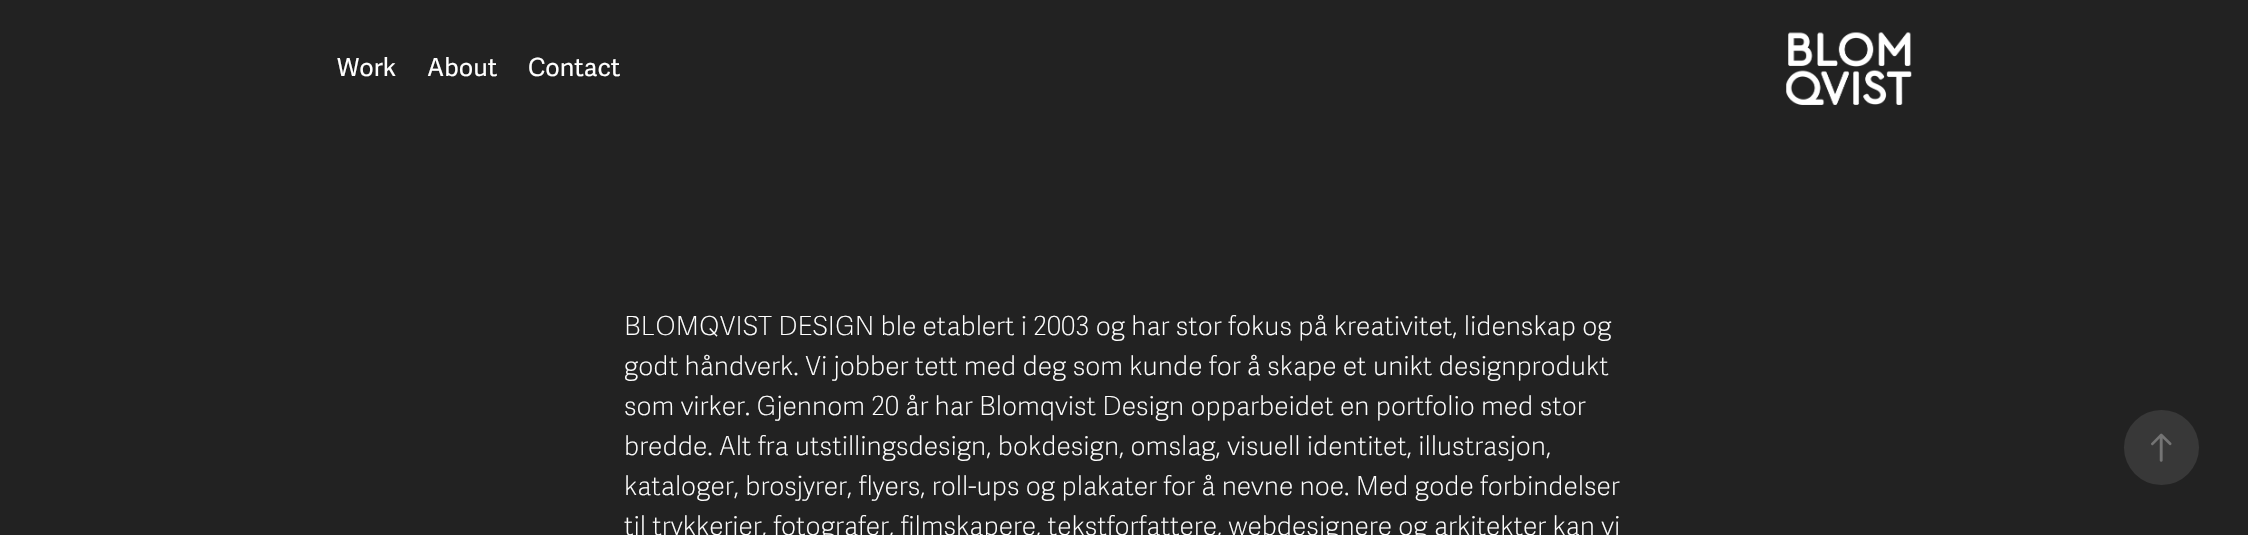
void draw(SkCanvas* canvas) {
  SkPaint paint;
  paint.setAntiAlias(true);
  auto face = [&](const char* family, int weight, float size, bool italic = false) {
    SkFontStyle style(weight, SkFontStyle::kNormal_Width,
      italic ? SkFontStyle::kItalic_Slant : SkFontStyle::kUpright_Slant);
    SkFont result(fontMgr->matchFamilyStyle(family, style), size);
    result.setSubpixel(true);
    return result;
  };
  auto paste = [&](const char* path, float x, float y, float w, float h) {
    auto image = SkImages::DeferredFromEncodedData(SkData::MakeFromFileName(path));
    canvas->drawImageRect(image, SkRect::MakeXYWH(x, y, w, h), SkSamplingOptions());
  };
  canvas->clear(0xff222222);
  paste("img/1.png", 1786, 32, 126, 73);
  paint.setColor(0xff383838);
  canvas->drawCircle(2161.5f, 447.5f, 37.5f, paint);
  paste("img/2.png", 2151, 433, 21, 29);
  auto f0 = face("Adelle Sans", 400, 25);
  paint.setColor(0xffffffff);
  {
    const struct { const char* s; float x, y; } items[] = {
      {"Work", 337, 76},
      {"About", 427, 76},
      {"Contact", 528, 76},
    };
    for (auto [s, x, y] : items) {
      canvas->drawString(s, x, y, f0, paint);
    }
  }
  auto f1 = face("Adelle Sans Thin", 100, 26.25f);
  {
    const struct { const char* s; float x, y; } items[] = {
      {"BLOMQVIST DESIGN ble etablert i 2003 og har stor fokus på kreativitet, lidenskap og", 624, 335},
      {"godt håndverk. Vi jobber tett med deg som kunde for å skape et unikt designprodukt", 624, 375},
      {"som virker. Gjennom 20 år har Blomqvist Design opparbeidet en portfolio med stor", 624, 415},
      {"bredde. Alt fra utstillingsdesign, bokdesign, omslag, visuell identitet, illustrasjon,", 624, 455},
      {"kataloger, brosjyrer, flyers, roll-ups og plakater for å nevne noe. Med gode forbindelser", 624, 495},
      {"til trykkerier, fotografer, filmskapere, tekstforfattere, webdesignere og arkitekter kan vi", 624, 535},
    };
    for (auto [s, x, y] : items) {
      canvas->drawString(s, x, y, f1, paint);
    }
  }
}
